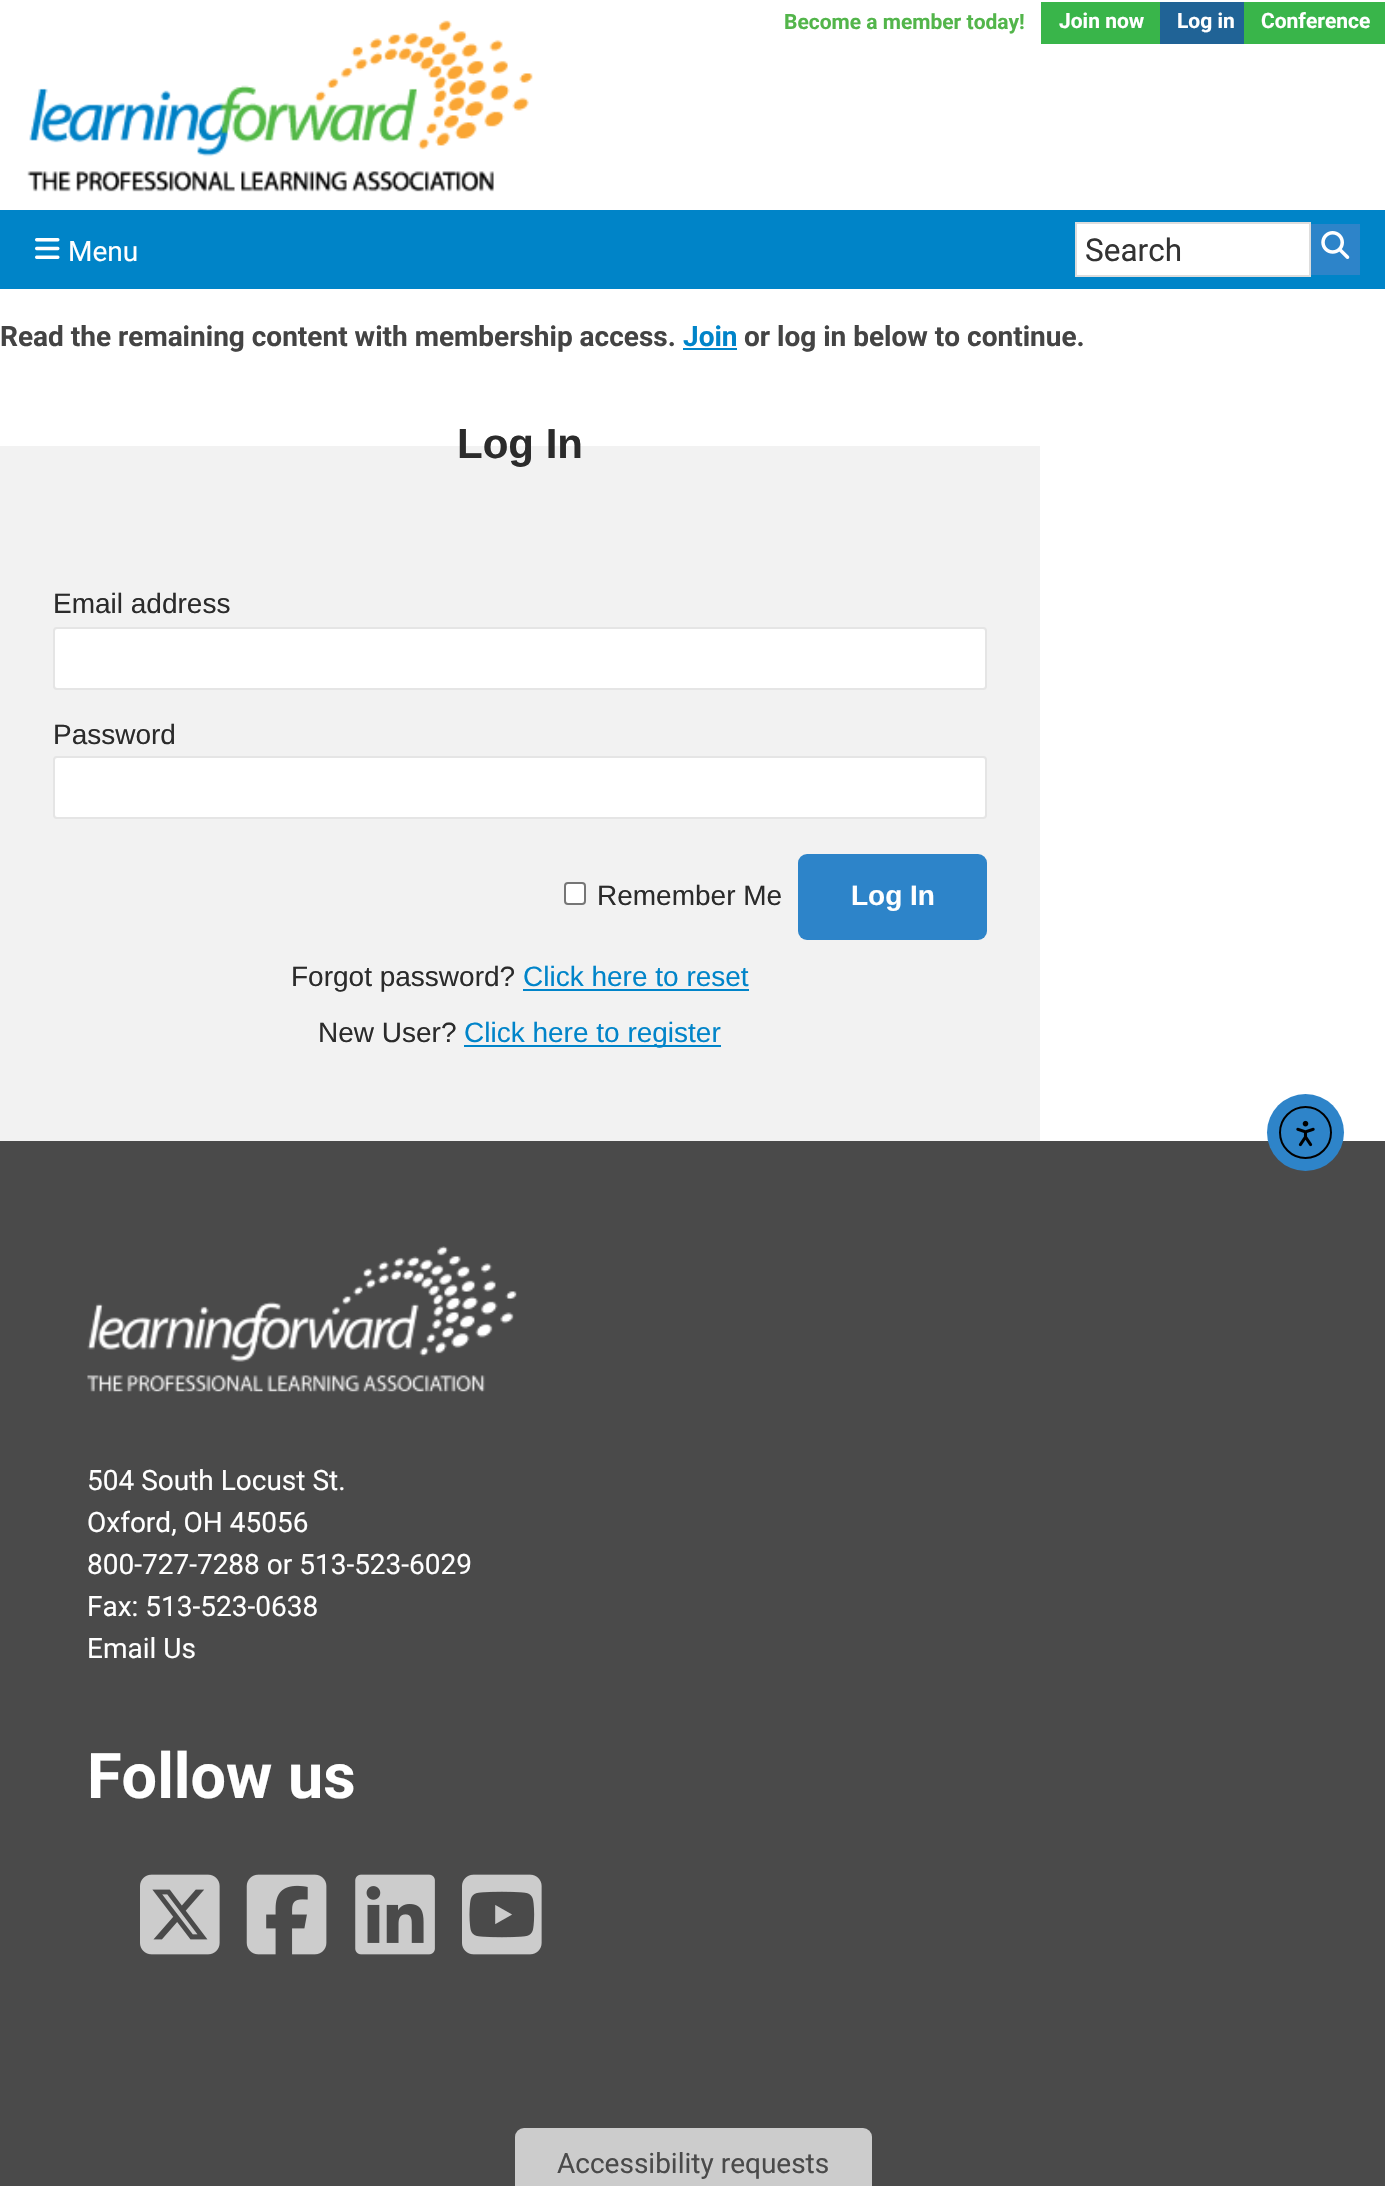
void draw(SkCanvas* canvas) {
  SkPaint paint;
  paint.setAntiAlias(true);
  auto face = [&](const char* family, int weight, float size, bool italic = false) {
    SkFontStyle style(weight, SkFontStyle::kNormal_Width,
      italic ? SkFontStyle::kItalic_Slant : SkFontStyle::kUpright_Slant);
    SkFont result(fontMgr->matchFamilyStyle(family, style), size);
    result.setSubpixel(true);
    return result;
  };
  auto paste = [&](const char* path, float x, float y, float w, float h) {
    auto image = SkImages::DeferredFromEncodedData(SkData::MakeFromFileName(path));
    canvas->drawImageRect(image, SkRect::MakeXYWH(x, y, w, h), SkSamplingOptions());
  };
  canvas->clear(0xffffffff);
  paste("img/1.png", 27, 20, 506, 172);
  {
    const struct { float x, y, w, h; SkColor color; } items[] = {
      {1041, 2, 119, 42, 0xff39b54a},
      {1160, 2, 84, 42, 0xff206396},
      {1244, 2, 141, 42, 0xff39b54a},
      {0, 210, 1385, 79, 0xff0084c8},
    };
    for (auto [x, y, w, h, color] : items) {
      paint.setColor(color);
      canvas->drawRect(SkRect::MakeXYWH(x, y, w, h), paint);
    }
  }
  paste("img/2.png", 35, 238, 25, 21);
  paint.setColor(0xffffffff);
  canvas->drawRect(SkRect::MakeXYWH(1076, 223, 234, 53), paint);
  paint.setStroke(true);
  paint.setStrokeWidth(2);
  paint.setColor(0xffdddddd);
  canvas->drawRect(SkRect::MakeXYWH(1076, 223, 234, 53), paint);
  paint.setStroke(false);
  paint.setColor(0xff2d84c9);
  canvas->drawRect(SkRect::MakeXYWH(1311, 224, 49, 51), paint);
  paste("img/3.png", 1321, 231, 29, 28);
  paint.setColor(0xff0084c9);
  canvas->drawRect(SkRect::MakeXYWH(683, 348, 54, 2), paint);
  paint.setColor(0xfff2f2f2);
  canvas->drawRect(SkRect::MakeXYWH(0, 446, 1040, 695), paint);
  paint.setColor(0xffffffff);
  canvas->drawRoundRect(SkRect::MakeXYWH(53, 627, 934, 63), 4, 4, paint);
  paint.setStroke(true);
  paint.setColor(0x1a000000);
  canvas->drawRoundRect(SkRect::MakeXYWH(54, 628, 932, 61), 3, 3, paint);
  paint.setStroke(false);
  paint.setColor(0xffffffff);
  canvas->drawRoundRect(SkRect::MakeXYWH(53, 756, 934, 63), 4, 4, paint);
  paint.setStroke(true);
  paint.setColor(0x1a000000);
  canvas->drawRoundRect(SkRect::MakeXYWH(54, 757, 932, 61), 3, 3, paint);
  paint.setStroke(false);
  paint.setColor(0xffffffff);
  canvas->drawRoundRect(SkRect::MakeXYWH(565, 883, 20, 21), 3, 3, paint);
  paint.setStroke(true);
  paint.setColor(0xff767676);
  canvas->drawRoundRect(SkRect::MakeXYWH(565, 883, 20, 21), 3, 3, paint);
  paint.setStroke(false);
  paint.setColor(0xff2d84c9);
  canvas->drawRoundRect(SkRect::MakeXYWH(798, 854, 189, 86), 9, 9, paint);
  {
    const struct { float x, y, w, h; SkColor color; } items[] = {
      {523, 989, 226, 2, 0xff0084c9},
      {464, 1045, 257, 2, 0xff0084c9},
      {0, 1141, 1385, 1045, 0xff4a4a4a},
    };
    for (auto [x, y, w, h, color] : items) {
      paint.setColor(color);
      canvas->drawRect(SkRect::MakeXYWH(x, y, w, h), paint);
    }
  }
  paste("img/4.png", 87, 1246, 430, 146);
  paste("img/5.png", 140, 1874, 80, 81);
  paste("img/6.png", 246, 1874, 81, 81);
  paste("img/7.png", 355, 1874, 80, 81);
  paste("img/8.png", 462, 1874, 80, 81);
  paint.setColor(0xffcccccc);
  canvas->drawRoundRect(SkRect::MakeXYWH(515, 2128, 357, 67), 9, 9, paint);
  paint.setColor(0xff2e84c9);
  canvas->drawCircle(1305.5f, 1132.5f, 38.5f, paint);
  paint.setStroke(true);
  paint.setColor(0xff000000);
  canvas->drawCircle(1305.5f, 1132.5f, 25.5f, paint);
  paste("img/9.png", 1296, 1120, 19, 27);
  auto f0 = face("Roboto", 700, 21);
  paint.setStroke(false);
  paint.setColor(0xff53b54b);
  canvas->drawString("Become a member today!", 784, 29, f0, paint);
  paint.setColor(0xffffffff);
  {
    const struct { const char* s; float x, y; } items[] = {
      {"Join now", 1059, 28},
      {"Log in", 1177, 28},
      {"Conference", 1261, 28},
    };
    for (auto [s, x, y] : items) {
      canvas->drawString(s, x, y, f0, paint);
    }
  }
  auto f1 = face("Roboto", 400, 28);
  canvas->drawString("Menu", 68, 261, f1, paint);
  auto f2 = face("Roboto", 400, 31.5f);
  paint.setColor(0xff333333);
  canvas->drawString("Search", 1085, 261, f2, paint);
  auto f3 = face("Roboto", 700, 28);
  paint.setColor(0xff444444);
  canvas->drawString("Read the remaining content with membership access.", 0, 346, f3, paint);
  paint.setColor(0xff0084c9);
  canvas->drawString("Join", 683, 346, f3, paint);
  paint.setColor(0xff444444);
  canvas->drawString("or log in below to continue.", 744, 346, f3, paint);
  auto f4 = face("Liberation Sans", 700, 42);
  paint.setColor(0xff2b2b2b);
  canvas->drawString("Log In", 457, 458, f4, paint);
  auto f5 = face("Liberation Sans", 400, 28);
  {
    const struct { const char* s; float x, y; } items[] = {
      {"Email address", 53, 613},
      {"Password", 53, 744},
      {"Remember Me", 597, 905},
    };
    for (auto [s, x, y] : items) {
      canvas->drawString(s, x, y, f5, paint);
    }
  }
  auto f6 = face("Liberation Sans", 700, 28);
  paint.setColor(0xffffffff);
  canvas->drawString("Log In", 851, 905, f6, paint);
  paint.setColor(0xff2b2b2b);
  canvas->drawString("Forgot password?", 291, 986, f5, paint);
  paint.setColor(0xff0084c9);
  canvas->drawString("Click here to reset", 523, 986, f5, paint);
  paint.setColor(0xff2b2b2b);
  canvas->drawString("New User?", 318, 1042, f5, paint);
  paint.setColor(0xff0084c9);
  canvas->drawString("Click here to register", 464, 1042, f5, paint);
  paint.setColor(0xffffffff);
  {
    const struct { const char* s; float x, y; } items[] = {
      {"504 South Locust St.", 87, 1490},
      {"Oxford, OH 45056", 87, 1532},
      {"800-727-7288 or 513-523-6029", 87, 1574},
      {"Fax: 513-523-0638", 87, 1616},
      {"Email Us", 87, 1658},
    };
    for (auto [s, x, y] : items) {
      canvas->drawString(s, x, y, f1, paint);
    }
  }
  auto f7 = face("Roboto", 700, 63);
  canvas->drawString("Follow us", 87, 1798, f7, paint);
  paint.setColor(0xff4a4a4a);
  canvas->drawString("Accessibility requests", 557, 2173, f1, paint);
}
